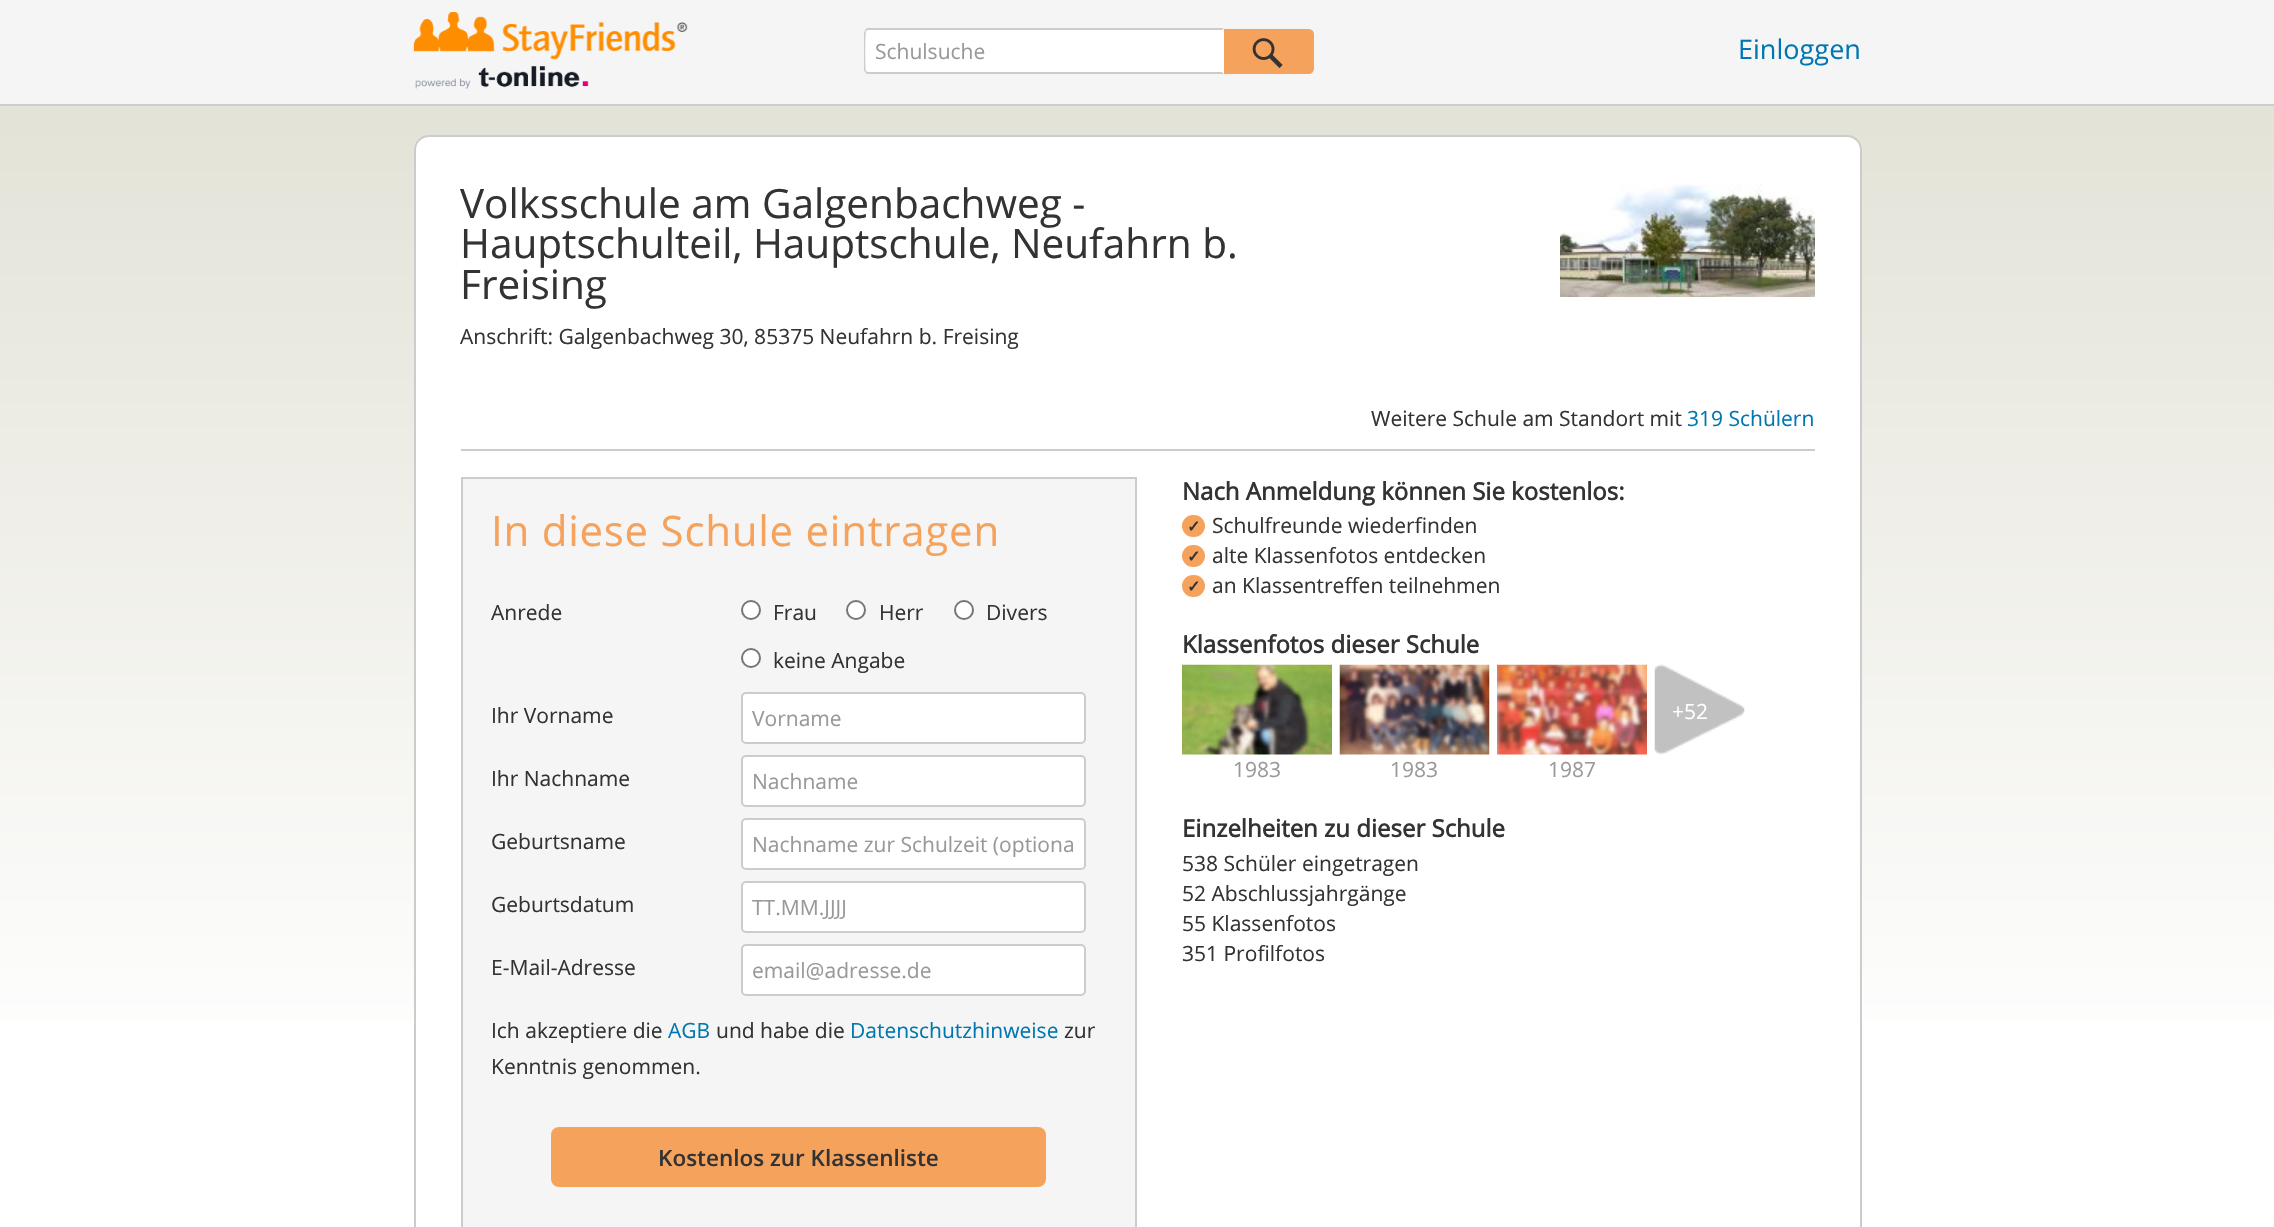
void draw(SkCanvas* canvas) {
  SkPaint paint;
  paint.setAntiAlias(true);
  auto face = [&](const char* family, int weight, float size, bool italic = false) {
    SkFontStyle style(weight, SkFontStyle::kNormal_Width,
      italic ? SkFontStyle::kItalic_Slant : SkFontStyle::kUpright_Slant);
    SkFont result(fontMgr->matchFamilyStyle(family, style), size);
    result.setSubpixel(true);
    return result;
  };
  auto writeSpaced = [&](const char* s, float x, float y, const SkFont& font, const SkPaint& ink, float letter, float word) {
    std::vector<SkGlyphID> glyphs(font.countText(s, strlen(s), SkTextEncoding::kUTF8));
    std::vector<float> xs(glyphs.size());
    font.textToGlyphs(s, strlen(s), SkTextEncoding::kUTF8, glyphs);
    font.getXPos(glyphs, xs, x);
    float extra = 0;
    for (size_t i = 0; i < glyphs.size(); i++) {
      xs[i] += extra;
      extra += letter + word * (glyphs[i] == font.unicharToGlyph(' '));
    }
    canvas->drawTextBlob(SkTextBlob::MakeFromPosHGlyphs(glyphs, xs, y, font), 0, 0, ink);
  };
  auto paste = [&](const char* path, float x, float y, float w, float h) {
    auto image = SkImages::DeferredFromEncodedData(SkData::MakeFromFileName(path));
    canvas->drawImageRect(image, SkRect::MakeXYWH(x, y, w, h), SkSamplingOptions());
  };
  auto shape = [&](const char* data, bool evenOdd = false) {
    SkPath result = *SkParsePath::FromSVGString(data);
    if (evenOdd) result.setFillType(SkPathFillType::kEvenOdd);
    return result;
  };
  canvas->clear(0xffffffff);
  {
    const SkColor colors[] = {0xffe4e3d8, 0xfffefefe};
    const float stops[] = {0.06f, 0.53f};
    const SkPoint ends[] = {{1137, 0}, {1137, 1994}};
    paint.setShader(SkGradientShader::MakeLinear(ends, colors, stops, 2, SkTileMode::kClamp));
    paint.setAlpha(255);
  }
  canvas->drawRect(SkRect::MakeXYWH(0, 106, 2274, 914), paint);
  paint.setShader(nullptr);
  paint.setColor(0xfff5f5f5);
  canvas->drawRect(SkRect::MakeXYWH(0, 0, 2274, 104), paint);
  paint.setColor(0xffcccccc);
  canvas->drawRect(SkRect::MakeXYWH(0, 104, 2274, 2), paint);
  paste("img/1.png", 413, 12, 275, 48);
  paint.setColor(0xffffffff);
  canvas->drawPath(shape("M869 29H1224V74H869C866 74 864 72 864 69V34C864 31 866 29 869 29Z"), paint);
  paint.setColor(0xffcccccc);
  canvas->drawPath(shape("M868 30L866 31L865 30L867 28H1224L1222 30Z"), paint);
  canvas->drawPath(shape("M1224 74H867L865 72L866 71L868 72H1222Z"), paint);
  canvas->drawPath(shape("M864 33V69C864 70 864 71 865 72L866 71C865 69 865 33 866 31L865 30Z"), paint);
  paint.setColor(0xfff5a25d);
  canvas->drawPath(shape("M1225 30H1309C1311 30 1313 32 1313 34V69C1313 71 1311 73 1309 73H1225Z"), paint);
  paint.setStroke(true);
  paint.setStrokeWidth(2);
  canvas->drawPath(shape("M1225 30H1309C1311 30 1313 32 1313 34V69C1313 71 1311 73 1309 73H1225Z"), paint);
  paste("img/2.png", 1252, 38, 31, 30);
  paste("img/3.png", 415, 66, 174, 23);
  paint.setStroke(false);
  paint.setColor(0xffffffff);
  canvas->drawRoundRect(SkRect::MakeXYWH(415, 136, 1446, 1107), 14, 14, paint);
  paint.setStroke(true);
  paint.setColor(0xffcccccc);
  canvas->drawRoundRect(SkRect::MakeXYWH(415, 136, 1446, 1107), 14, 14, paint);
  paint.setStroke(false);
  canvas->drawRect(SkRect::MakeXYWH(461, 449, 1354, 2), paint);
  paste("img/4.png", 1560, 184, 255, 113);
  paint.setColor(0xfff5f5f5);
  canvas->drawRect(SkRect::MakeXYWH(462, 478, 674, 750), paint);
  paint.setStroke(true);
  paint.setColor(0xffcccccc);
  canvas->drawRect(SkRect::MakeXYWH(462, 478, 674, 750), paint);
  paint.setStroke(false);
  paint.setColor(0xffffffff);
  canvas->drawCircle(751, 610, 9, paint);
  paint.setStroke(true);
  paint.setColor(0xff767676);
  canvas->drawCircle(751, 610, 9, paint);
  paint.setStroke(false);
  paint.setColor(0xffffffff);
  canvas->drawCircle(856, 610, 9, paint);
  paint.setStroke(true);
  paint.setColor(0xff767676);
  canvas->drawCircle(856, 610, 9, paint);
  paint.setStroke(false);
  paint.setColor(0xffffffff);
  canvas->drawCircle(964, 610, 9, paint);
  paint.setStroke(true);
  paint.setColor(0xff767676);
  canvas->drawCircle(964, 610, 9, paint);
  paint.setStroke(false);
  paint.setColor(0xffffffff);
  canvas->drawCircle(751, 658, 9, paint);
  paint.setStroke(true);
  paint.setColor(0xff767676);
  canvas->drawCircle(751, 658, 9, paint);
  paint.setStroke(false);
  paint.setColor(0xffffffff);
  canvas->drawRoundRect(SkRect::MakeXYWH(742, 693, 343, 50), 4, 4, paint);
  paint.setStroke(true);
  paint.setColor(0xffcccccc);
  canvas->drawRoundRect(SkRect::MakeXYWH(742, 693, 343, 50), 4, 4, paint);
  paint.setStroke(false);
  paint.setColor(0xffffffff);
  canvas->drawRoundRect(SkRect::MakeXYWH(742, 756, 343, 50), 4, 4, paint);
  paint.setStroke(true);
  paint.setColor(0xffcccccc);
  canvas->drawRoundRect(SkRect::MakeXYWH(742, 756, 343, 50), 4, 4, paint);
  paint.setStroke(false);
  paint.setColor(0xffffffff);
  canvas->drawRoundRect(SkRect::MakeXYWH(742, 819, 343, 50), 4, 4, paint);
  paint.setStroke(true);
  paint.setColor(0xffcccccc);
  canvas->drawRoundRect(SkRect::MakeXYWH(742, 819, 343, 50), 4, 4, paint);
  paint.setStroke(false);
  paint.setColor(0xffffffff);
  canvas->drawRoundRect(SkRect::MakeXYWH(742, 882, 343, 50), 4, 4, paint);
  paint.setStroke(true);
  paint.setColor(0xffcccccc);
  canvas->drawRoundRect(SkRect::MakeXYWH(742, 882, 343, 50), 4, 4, paint);
  paint.setStroke(false);
  paint.setColor(0xffffffff);
  canvas->drawRoundRect(SkRect::MakeXYWH(742, 945, 343, 50), 4, 4, paint);
  paint.setStroke(true);
  paint.setColor(0xffcccccc);
  canvas->drawRoundRect(SkRect::MakeXYWH(742, 945, 343, 50), 4, 4, paint);
  paint.setStroke(false);
  paint.setColor(0xfff5a25d);
  canvas->drawRoundRect(SkRect::MakeXYWH(551, 1127, 495, 60), 8, 8, paint);
  canvas->drawRoundRect(SkRect::MakeXYWH(1182, 515, 23, 22), 11, 11, paint);
  canvas->drawRoundRect(SkRect::MakeXYWH(1182, 545, 23, 22), 11, 11, paint);
  canvas->drawRoundRect(SkRect::MakeXYWH(1182, 575, 23, 22), 11, 11, paint);
  paste("img/5.png", 1654, 664, 91, 91);
  paste("img/6.png", 1182, 664, 150, 91);
  paste("img/7.png", 1339, 664, 151, 91);
  paste("img/8.png", 1497, 664, 150, 91);
  auto f0 = face("Open Sans", 400, 21);
  paint.setColor(0xff999999);
  canvas->drawString("Schulsuche", 875, 59, f0, paint);
  auto f1 = face("Open Sans", 400, 27);
  paint.setColor(0xff0077b2);
  canvas->drawString("Einloggen", 1738, 59, f1, paint);
  auto f2 = face("Open Sans", 400, 40.5f);
  paint.setColor(0xff333333);
  {
    const struct { const char* s; float x, y; } items[] = {
      {"Volksschule am Galgenbachweg -", 460, 218},
      {"Hauptschulteil, Hauptschule, Neufahrn b.", 460, 258},
      {"Freising", 460, 299},
    };
    for (auto [s, x, y] : items) {
      canvas->drawString(s, x, y, f2, paint);
    }
  }
  canvas->drawString("Anschrift: Galgenbachweg 30, 85375 Neufahrn b. Freising", 460, 344, f0, paint);
  canvas->drawString("Weitere Schule am Standort mit", 1371, 426, f0, paint);
  paint.setColor(0xff0077b2);
  canvas->drawString("319 Schülern", 1687, 426, f0, paint);
  auto f3 = face("Open Sans", 400, 42);
  paint.setColor(0xfff5a25d);
  writeSpaced("In diese Schule eintragen", 491, 546, f3, paint, 0.75f, 0);
  paint.setColor(0xff333333);
  {
    const struct { const char* s; float x, y; } items[] = {
      {"Anrede", 491, 620},
      {"Frau", 773, 620},
      {"Herr", 879, 620},
      {"Divers", 986, 620},
      {"keine Angabe", 773, 668},
      {"Ihr Vorname", 491, 723},
    };
    for (auto [s, x, y] : items) {
      canvas->drawString(s, x, y, f0, paint);
    }
  }
  paint.setColor(0xff999999);
  canvas->drawString("Vorname", 752, 726, f0, paint);
  paint.setColor(0xff333333);
  canvas->drawString("Ihr Nachname", 491, 786, f0, paint);
  paint.setColor(0xff999999);
  canvas->drawString("Nachname", 752, 789, f0, paint);
  paint.setColor(0xff333333);
  canvas->drawString("Geburtsname", 491, 849, f0, paint);
  paint.setColor(0xff999999);
  canvas->drawString("Nachname zur Schulzeit (optiona", 752, 852, f0, paint);
  paint.setColor(0xff333333);
  canvas->drawString("Geburtsdatum", 491, 912, f0, paint);
  paint.setColor(0xff999999);
  canvas->drawString("TT.MM.JJJJ", 752, 915, f0, paint);
  paint.setColor(0xff333333);
  canvas->drawString("E-Mail-Adresse", 491, 975, f0, paint);
  paint.setColor(0xff999999);
  canvas->drawString("email@adresse.de", 752, 978, f0, paint);
  paint.setColor(0xff333333);
  canvas->drawString("Ich akzeptiere die", 491, 1038, f0, paint);
  paint.setColor(0xff0077b2);
  canvas->drawString("AGB", 668, 1038, f0, paint);
  paint.setColor(0xff333333);
  canvas->drawString("und habe die", 716, 1038, f0, paint);
  paint.setColor(0xff0077b2);
  canvas->drawString("Datenschutzhinweise", 850, 1038, f0, paint);
  paint.setColor(0xff333333);
  canvas->drawString("zur", 1064, 1038, f0, paint);
  canvas->drawString("Kenntnis genommen.", 491, 1074, f0, paint);
  auto f4 = face("Open Sans", 600, 22.5f);
  canvas->drawString("Kostenlos zur Klassenliste", 658, 1166, f4, paint);
  auto f5 = face("Open Sans", 700, 24);
  canvas->drawString("Nach Anmeldung können Sie kostenlos:", 1182, 500, f5, paint);
  auto f6 = face("DejaVu Sans", 700, 16);
  canvas->drawString("✓", 1187, 532, f6, paint);
  canvas->drawString("Schulfreunde wiederfinden", 1212, 533, f0, paint);
  canvas->drawString("✓", 1187, 562, f6, paint);
  canvas->drawString("alte Klassenfotos entdecken", 1212, 563, f0, paint);
  canvas->drawString("✓", 1187, 592, f6, paint);
  canvas->drawString("an Klassentreffen teilnehmen", 1212, 593, f0, paint);
  canvas->drawString("Klassenfotos dieser Schule", 1182, 653, f5, paint);
  paint.setColor(0xffffffff);
  canvas->drawString("+52", 1672, 719, f0, paint);
  paint.setColor(0xff999999);
  {
    const struct { const char* s; float x, y; } items[] = {
      {"1983", 1233, 777},
      {"1983", 1390, 777},
      {"1987", 1548, 777},
    };
    for (auto [s, x, y] : items) {
      canvas->drawString(s, x, y, f0, paint);
    }
  }
  paint.setColor(0xff333333);
  canvas->drawString("Einzelheiten zu dieser Schule", 1182, 837, f5, paint);
  {
    const struct { const char* s; float x, y; } items[] = {
      {"538 Schüler eingetragen", 1182, 871},
      {"52 Abschlussjahrgänge", 1182, 901},
      {"55 Klassenfotos", 1182, 931},
      {"351 Profilfotos", 1182, 961},
    };
    for (auto [s, x, y] : items) {
      canvas->drawString(s, x, y, f0, paint);
    }
  }
}
